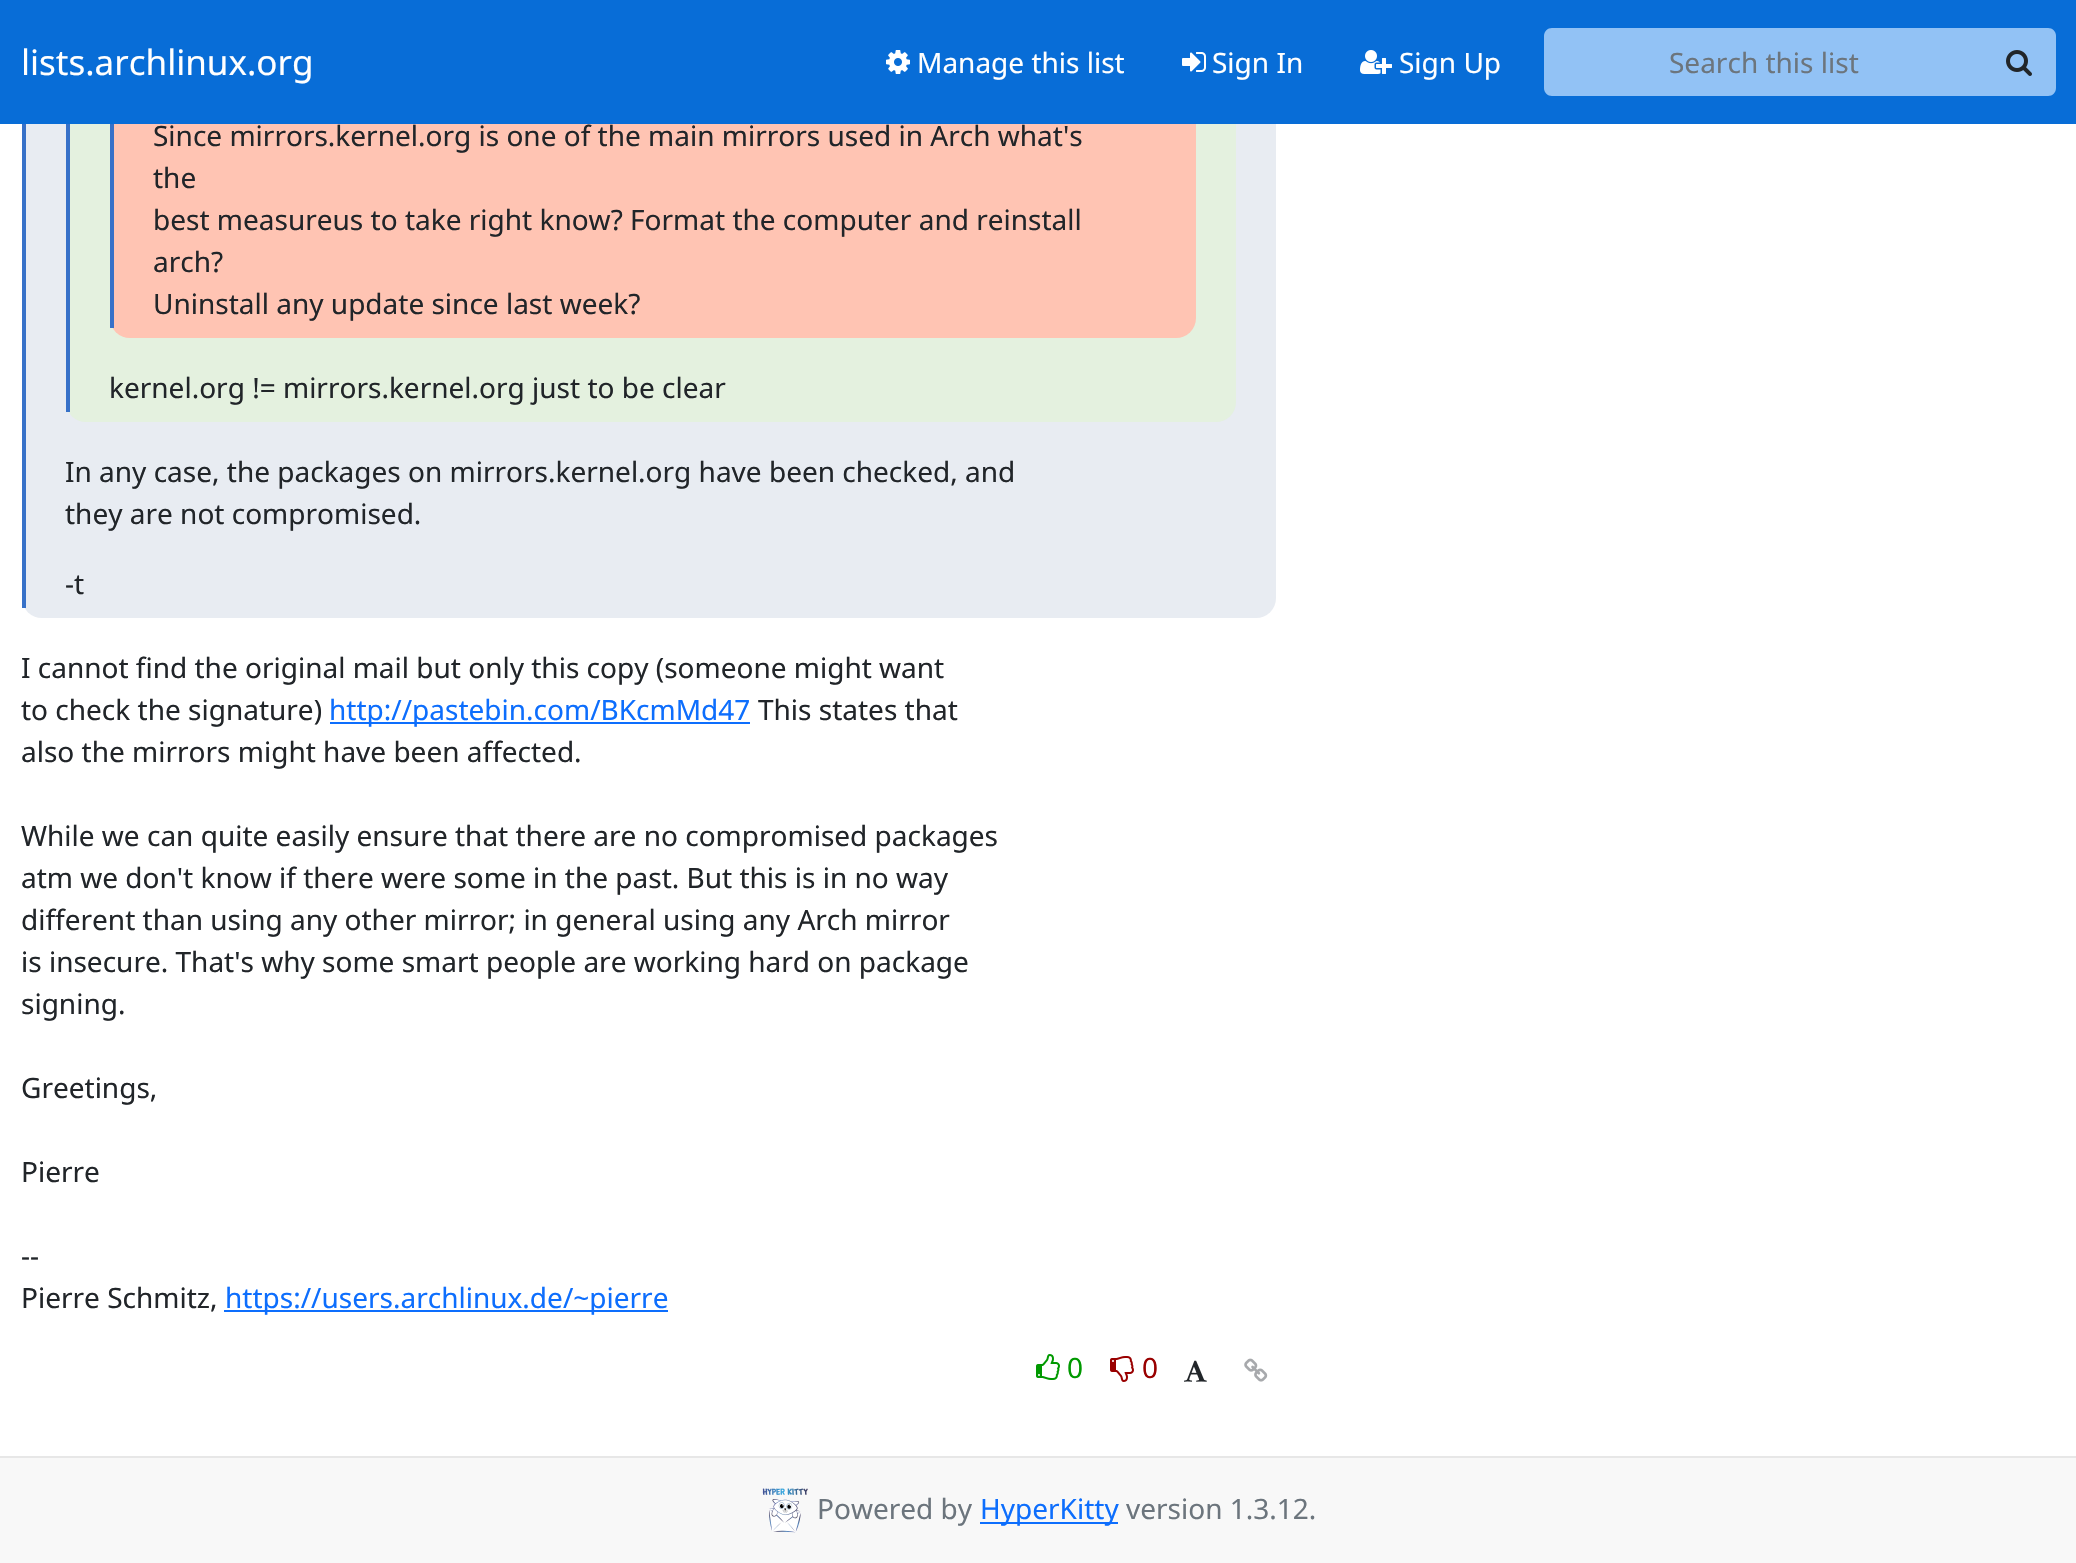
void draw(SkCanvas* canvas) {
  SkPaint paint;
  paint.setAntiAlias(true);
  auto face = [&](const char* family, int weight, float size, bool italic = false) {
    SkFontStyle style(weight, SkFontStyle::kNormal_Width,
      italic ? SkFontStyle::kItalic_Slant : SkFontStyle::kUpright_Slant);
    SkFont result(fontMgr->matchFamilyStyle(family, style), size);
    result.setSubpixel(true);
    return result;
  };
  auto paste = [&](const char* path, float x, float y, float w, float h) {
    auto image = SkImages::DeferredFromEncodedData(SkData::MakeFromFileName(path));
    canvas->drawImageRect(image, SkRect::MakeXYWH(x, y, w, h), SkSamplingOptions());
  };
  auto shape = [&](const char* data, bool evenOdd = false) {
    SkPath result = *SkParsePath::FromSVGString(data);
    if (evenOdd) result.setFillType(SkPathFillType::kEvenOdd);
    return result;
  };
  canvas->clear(0xffffffff);
  paint.setColor(0xffe8ecf2);
  canvas->drawRoundRect(SkRect::MakeXYWH(22, -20, 1254, 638), 20, 20, paint);
  paint.setColor(0xffe4f1df);
  canvas->drawRoundRect(SkRect::MakeXYWH(66, -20, 1170, 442), 20, 20, paint);
  paint.setColor(0xffffc4b3);
  canvas->drawRoundRect(SkRect::MakeXYWH(110, 100, 1086, 238), 20, 20, paint);
  paint.setColor(0xff086dd7);
  canvas->drawRect(SkRect::MakeXYWH(0, 0, 2076, 124), paint);
  paste("img/1.png", 886, 50, 24, 24);
  paste("img/2.png", 1182, 52, 24, 20);
  paste("img/3.png", 1360, 50, 32, 24);
  paint.setColor(0xff92c2f5);
  canvas->drawPath(shape("M1552 28H1986V96H1552C1547.5 96 1544 92.5 1544 88V36C1544 31.5 1547.5 28 1552 28Z"), paint);
  canvas->drawPath(shape("M1984 28H2048C2052.5 28 2056 31.5 2056 36V88C2056 92.5 2052.5 96 2048 96H1984Z"), paint);
  paste("img/4.png", 2006, 50, 26, 26);
  {
    const struct { float x, y, w, h; SkColor color; } items[] = {
      {22, 124, 4, 484, 0xff3771c8},
      {66, 124, 4, 288, 0xff3771c8},
      {110, 124, 4, 204, 0xff3771c8},
      {330, 722, 420, 2, 0xff0d6efd},
      {224, 1310, 444, 2, 0xff0d6efd},
    };
    for (auto [x, y, w, h, color] : items) {
      paint.setColor(color);
      canvas->drawRect(SkRect::MakeXYWH(x, y, w, h), paint);
    }
  }
  paste("img/5.png", 1036, 1354, 24, 26);
  paste("img/6.png", 1110, 1356, 24, 26);
  paste("img/7.png", 1184, 1360, 23, 22);
  paste("img/8.png", 1244, 1358, 24, 24);
  paint.setColor(0xfff8f8f8);
  canvas->drawRect(SkRect::MakeXYWH(0, 1458, 2076, 105), paint);
  paint.setColor(0xffe7e7e7);
  canvas->drawRect(SkRect::MakeXYWH(0, 1456, 2076, 2), paint);
  paste("img/9.png", 762, 1488, 46, 45);
  paint.setColor(0xff0d6efd);
  canvas->drawRect(SkRect::MakeXYWH(980, 1522, 138, 2), paint);
  auto f0 = face("Noto Sans", 400, 35);
  paint.setColor(0xffffffff);
  canvas->drawString("lists.archlinux.org", 21, 75, f0, paint);
  auto f1 = face("Noto Sans", 400, 28);
  {
    const struct { const char* s; float x, y; } items[] = {
      {"Manage this list", 917, 73},
      {"Sign In", 1212, 73},
      {"Sign Up", 1399, 73},
    };
    for (auto [s, x, y] : items) {
      canvas->drawString(s, x, y, f1, paint);
    }
  }
  paint.setColor(0xff6c757d);
  canvas->drawString("Search this list", 1669, 73, f1, paint);
  paint.setColor(0xff212529);
  {
    const struct { const char* s; float x, y; } items[] = {
      {"Since mirrors.kernel.org is one of the main mirrors used in Arch what's", 153, 146},
      {"the", 153, 188},
      {"best measureus to take right know? Format the computer and reinstall", 153, 230},
      {"arch?", 153, 272},
      {"Uninstall any update since last week?", 153, 314},
      {"kernel.org != mirrors.kernel.org just to be clear", 109, 398},
      {"In any case, the packages on mirrors.kernel.org have been checked, and", 65, 482},
      {"they are not compromised.", 65, 524},
      {"-t", 65, 594},
      {"I cannot find the original mail but only this copy (someone might want", 21, 678},
      {"to check the signature)", 21, 720},
    };
    for (auto [s, x, y] : items) {
      canvas->drawString(s, x, y, f1, paint);
    }
  }
  paint.setColor(0xff0d6efd);
  canvas->drawString("http://pastebin.com/BKcmMd47", 329, 720, f1, paint);
  paint.setColor(0xff212529);
  {
    const struct { const char* s; float x, y; } items[] = {
      {"This states that", 758, 720},
      {"also the mirrors might have been affected.", 21, 762},
      {"While we can quite easily ensure that there are no compromised packages", 21, 846},
      {"atm we don't know if there were some in the past. But this is in no way", 21, 888},
      {"different than using any other mirror; in general using any Arch mirror", 21, 930},
      {"is insecure. That's why some smart people are working hard on package", 21, 972},
      {"signing.", 21, 1014},
      {"Greetings,", 21, 1098},
      {"Pierre", 21, 1182},
      {"--", 21, 1266},
      {"Pierre Schmitz,", 21, 1308},
    };
    for (auto [s, x, y] : items) {
      canvas->drawString(s, x, y, f1, paint);
    }
  }
  paint.setColor(0xff0d6efd);
  canvas->drawString("https://users.archlinux.de/~pierre", 225, 1308, f1, paint);
  paint.setColor(0xff009900);
  canvas->drawString("0", 1067, 1378, f1, paint);
  paint.setColor(0xff990000);
  canvas->drawString("0", 1142, 1378, f1, paint);
  paint.setColor(0xff6c757d);
  canvas->drawString("Powered by", 817, 1519, f1, paint);
  paint.setColor(0xff0d6efd);
  canvas->drawString("HyperKitty", 980, 1519, f1, paint);
  paint.setColor(0xff6c757d);
  canvas->drawString("version 1.3.12.", 1126, 1519, f1, paint);
}
